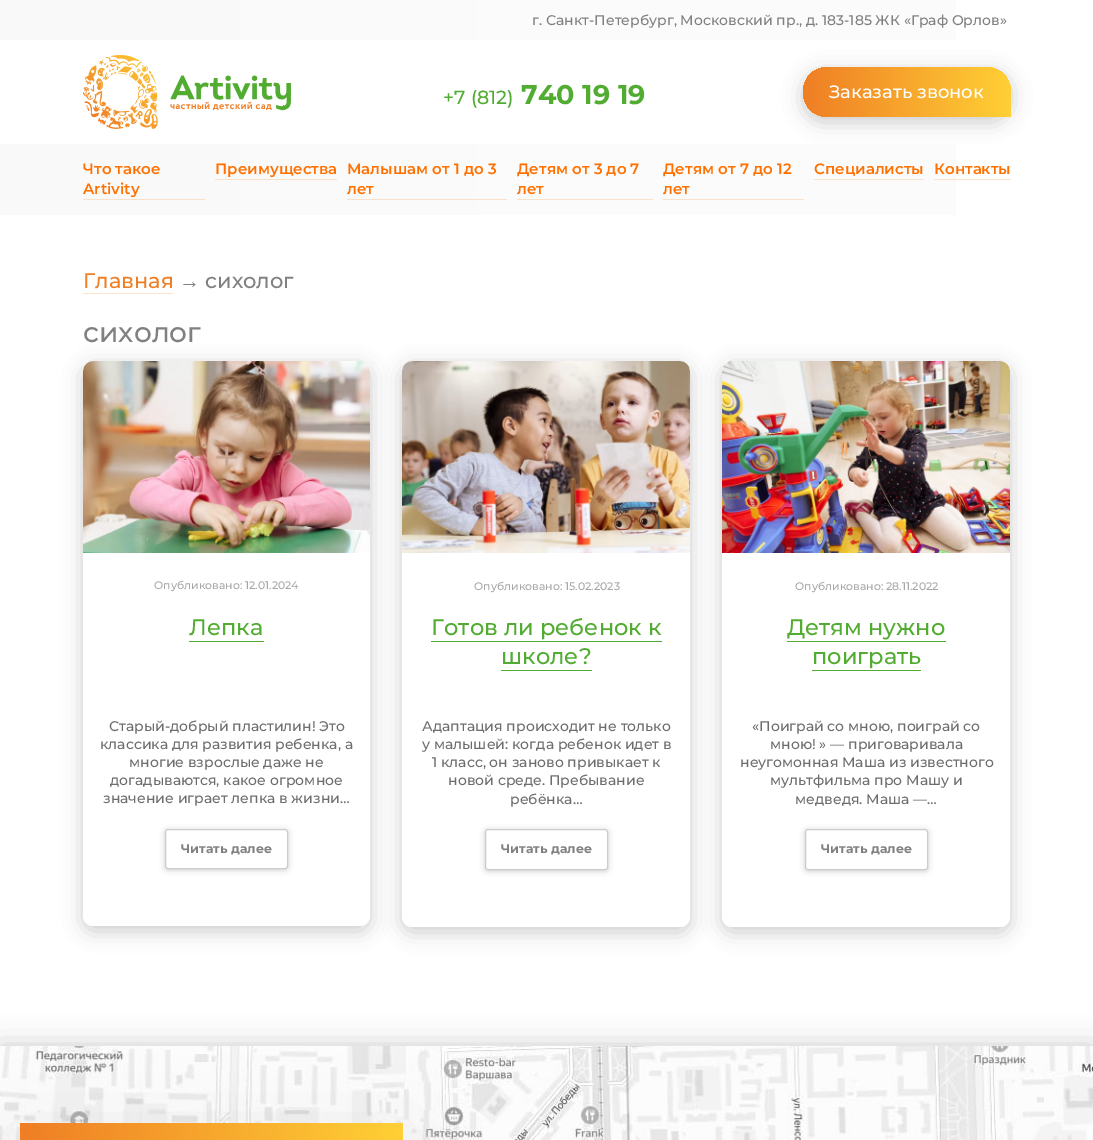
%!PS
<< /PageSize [1093 1140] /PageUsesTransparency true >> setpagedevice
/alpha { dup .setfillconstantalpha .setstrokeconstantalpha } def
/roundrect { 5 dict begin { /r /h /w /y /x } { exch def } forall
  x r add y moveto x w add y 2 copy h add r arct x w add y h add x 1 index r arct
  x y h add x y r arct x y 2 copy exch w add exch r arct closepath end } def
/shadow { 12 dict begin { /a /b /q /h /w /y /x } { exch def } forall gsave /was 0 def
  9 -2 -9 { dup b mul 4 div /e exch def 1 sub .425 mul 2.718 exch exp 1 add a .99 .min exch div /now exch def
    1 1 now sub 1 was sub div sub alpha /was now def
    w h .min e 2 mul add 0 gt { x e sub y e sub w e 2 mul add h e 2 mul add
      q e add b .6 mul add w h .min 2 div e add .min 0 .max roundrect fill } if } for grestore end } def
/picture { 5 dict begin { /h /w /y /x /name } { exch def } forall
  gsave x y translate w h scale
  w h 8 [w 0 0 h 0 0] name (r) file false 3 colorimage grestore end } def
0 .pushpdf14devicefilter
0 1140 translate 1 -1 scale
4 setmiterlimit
1 setgray
0 0 1093 1140 rectfill
gsave newpath 0 0 moveto 956 0 lineto 956 40 lineto 0 40 lineto closepath clip newpath
<< /ShadingType 2 /ColorSpace /DeviceRGB /Coords [0 20 1093 20] /Extend [true true] /Function << /FunctionType 2 /Domain [0 1] /C0 [0.976 0.976 0.976] /C1 [0.992 0.992 0.992] /N 1 >> >> shfill grestore
/Montserrat-Medium [14 0 0 -14 0 0] selectfont
0.502 setgray
532 25 moveto (г. Санкт-Петербург, Московский пр., д. 183-185 ЖК «Граф Орлов») show
(img1.rgb) 83 55 208 74 picture
/Montserrat-Medium [19 0 0 -19 0 0] selectfont
0.322 0.675 0.196 setrgbcolor
443 104 moveto (+7 \(812\)) show
/Montserrat-Bold [27 0 0 -27 0 0] selectfont
521 104 moveto (740 19 19) show
0 setgray
803 72 208 50 25 10 0.2 shadow
gsave newpath 828 67 moveto 986 67 lineto 1000 67 1011 78 1011 92 curveto 1011 117 lineto 828 117 lineto 814 117 803 106 803 92 curveto 803 78 814 67 828 67 curveto closepath clip newpath
<< /ShadingType 2 /ColorSpace /DeviceRGB /Coords [803 92 1011 92] /Extend [true true] /Function << /FunctionType 2 /Domain [0 1] /C0 [0.937 0.494 0.145] /C1 [1 0.816 0.208] /N 1 >> >> shfill grestore
/Montserrat-Medium [18 0 0 -18 0 0] selectfont
1 setgray
829 98 moveto (Заказать звонок) show
gsave newpath 0 144 moveto 956 144 lineto 956 215 lineto 0 215 lineto closepath clip newpath
<< /ShadingType 2 /ColorSpace /DeviceRGB /Coords [0 180 1093 179] /Extend [true true] /Function << /FunctionType 2 /Domain [0 1] /C0 [0.976 0.976 0.976] /C1 [0.992 0.992 0.992] /N 1 >> >> shfill grestore
0.973 0.878 0.788 setrgbcolor
83 199 122 1 rectfill
/Montserrat-SemiBold [15 0 0 -15 0 0] selectfont
1 0.439 0 setrgbcolor
83 174 moveto (Что такое) show
83 194 moveto (Artivity) show
0.973 0.878 0.788 setrgbcolor
215 179 122 1 rectfill
1 0.439 0 setrgbcolor
215 174 moveto (Преимущества) show
0.973 0.878 0.792 setrgbcolor
347 199 160 1 rectfill
1 0.439 0 setrgbcolor
347 174 moveto (Малышам от 1 до 3) show
347 194 moveto (лет) show
0.976 0.882 0.792 setrgbcolor
517 199 136 1 rectfill
1 0.439 0 setrgbcolor
517 174 moveto (Детям от 3 до 7) show
517 194 moveto (лет) show
0.976 0.882 0.796 setrgbcolor
663 199 141 1 rectfill
1 0.439 0 setrgbcolor
663 174 moveto (Детям от 7 до 12) show
663 194 moveto (лет) show
0.976 0.886 0.796 setrgbcolor
814 179 110 1 rectfill
1 0.439 0 setrgbcolor
814 174 moveto (Специалисты) show
0.98 0.886 0.8 setrgbcolor
934 179 77 1 rectfill
1 0.439 0 setrgbcolor
934 174 moveto (Контакты) show
/Montserrat-Medium [21 0 0 -21 0 0] selectfont
0.937 0.494 0.145 setrgbcolor
83 288 moveto (Главная) show
0.988 0.894 0.804 setrgbcolor
83 293 90 1 rectfill
/LiberationSans-Regular [21 0 0 -21 0 0] selectfont
0.502 setgray
179 288 moveto (→) show
/Montserrat-Medium [21 0 0 -21 0 0] selectfont
205 288 moveto (сихолог) show
/Montserrat-Medium [28 0 0 -28 0 0] selectfont
83 342 moveto (сихолог) show
0 setgray
83 366 287 565 10 10 0.2 shadow
1 setgray
83 361 287 565 10 roundrect fill
(img2.rgb) 83 361 287 192 picture
/Montserrat-Regular [48 0 0 -48 0 0] selectfont
0.78 0.647 0.573 setrgbcolor
213 474 moveto (+) show
/Montserrat-Medium [10.9 0 0 -10.9 0 0] selectfont
0.655 setgray
154 589 moveto (Опубликовано: 12.01.2024) show
/Montserrat-Medium [22.5 0 0 -22.5 0 0] selectfont
0.322 0.675 0.196 setrgbcolor
189 635 moveto (Лепка) show
189 641 75 1 rectfill
/Montserrat-Medium [14 0 0 -14 0 0] selectfont
0.427 setgray
109 731 moveto (Старый-добрый пластилин! Это) show
100 749 moveto (классика для развития ребенка, а) show
129 767 moveto (многие взрослые даже не) show
110 785 moveto (догадываются, какое огромное) show
103 803 moveto (значение играет лепка в жизни…) show
gsave
newpath 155 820 moveto 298 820 lineto 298 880 lineto 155 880 lineto closepath 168 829 moveto 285 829 lineto 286.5 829 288 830.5 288 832 curveto 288 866 lineto 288 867.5 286.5 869 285 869 curveto 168 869 lineto 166.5 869 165 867.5 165 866 curveto 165 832 lineto 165 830.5 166.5 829 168 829 curveto closepath eoclip newpath
0 setgray
165 830 123 40 3 3 0.2 shadow
grestore
0.8 setgray
165.5 829.5 122 39 2.5 roundrect stroke
/Montserrat-Bold [12.5 0 0 -12.5 0 0] selectfont
0.502 setgray
181 853 moveto (Читать далее) show
0 setgray
402 366 288 566 10 10 0.2 shadow
1 setgray
402 361 288 566 10 roundrect fill
(img3.rgb) 402 361 288 192 picture
/Montserrat-Medium [10.9 0 0 -10.9 0 0] selectfont
0.655 setgray
474 590 moveto (Опубликовано: 15.02.2023) show
/Montserrat-Medium [22.5 0 0 -22.5 0 0] selectfont
0.322 0.675 0.196 setrgbcolor
431 635 moveto (Готов ли ребенок к) show
431 641 231 1 rectfill
501 664 moveto (школе?) show
501 670 91 1 rectfill
/Montserrat-Medium [14 0 0 -14 0 0] selectfont
0.427 setgray
422 731 moveto (Адаптация происходит не только) show
422 749 moveto (у малышей: когда ребенок идет в) show
432 767 moveto (1 класс, он заново привыкает к) show
448 785 moveto (новой среде. Пребывание) show
510 804 moveto (ребёнка…) show
gsave
newpath 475 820 moveto 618 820 lineto 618 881 lineto 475 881 lineto closepath 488 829 moveto 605 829 lineto 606.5 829 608 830.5 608 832 curveto 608 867 lineto 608 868.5 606.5 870 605 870 curveto 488 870 lineto 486.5 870 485 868.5 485 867 curveto 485 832 lineto 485 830.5 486.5 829 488 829 curveto closepath eoclip newpath
0 setgray
485 830 123 41 3 3 0.2 shadow
grestore
0.8 setgray
485.5 829.5 122 40 2.5 roundrect stroke
/Montserrat-Bold [12.5 0 0 -12.5 0 0] selectfont
0.502 setgray
501 853 moveto (Читать далее) show
0 setgray
722 366 288 566 10 10 0.2 shadow
1 setgray
722 361 288 566 10 roundrect fill
(img4.rgb) 722 361 288 192 picture
/Montserrat-Regular [48 0 0 -48 0 0] selectfont
0.224 0.173 0.184 setrgbcolor
853 474 moveto (+) show
/Montserrat-Medium [10.9 0 0 -10.9 0 0] selectfont
0.655 setgray
795 590 moveto (Опубликовано: 28.11.2022) show
/Montserrat-Medium [22.5 0 0 -22.5 0 0] selectfont
0.322 0.675 0.196 setrgbcolor
787 635 moveto (Детям нужно) show
787 641 159 1 rectfill
812 664 moveto (поиграть) show
812 670 109 1 rectfill
/Montserrat-Medium [14 0 0 -14 0 0] selectfont
0.427 setgray
752 731 moveto («Поиграй со мною, поиграй со) show
770 749 moveto (мною! » — приговаривала) show
740 767 moveto (неугомонная Маша из известного) show
770 785 moveto (мультфильма про Машу и) show
795 804 moveto (медведя. Маша —…) show
gsave
newpath 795 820 moveto 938 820 lineto 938 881 lineto 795 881 lineto closepath 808 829 moveto 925 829 lineto 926.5 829 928 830.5 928 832 curveto 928 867 lineto 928 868.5 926.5 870 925 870 curveto 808 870 lineto 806.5 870 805 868.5 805 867 curveto 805 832 lineto 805 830.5 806.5 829 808 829 curveto closepath eoclip newpath
0 setgray
805 830 123 41 3 3 0.2 shadow
grestore
0.8 setgray
805.5 829.5 122 40 2.5 roundrect stroke
/Montserrat-Bold [12.5 0 0 -12.5 0 0] selectfont
0.502 setgray
821 853 moveto (Читать далее) show
0 setgray
0 1046 1093 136 0 14 0.2 shadow
(img5.rgb) 0 1046 1093 94 picture
0.071 0.075 0.082 setrgbcolor
20 1140 383 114 0 38 0.11 shadow
gsave newpath 20 1123 moveto 403 1123 lineto 403 1140 lineto 20 1140 lineto closepath clip newpath
<< /ShadingType 2 /ColorSpace /DeviceRGB /Coords [20 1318 403 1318] /Extend [true true] /Function << /FunctionType 2 /Domain [0 1] /C0 [0.937 0.494 0.145] /C1 [1 0.816 0.208] /N 1 >> >> shfill grestore
.poppdf14devicefilter showpage
